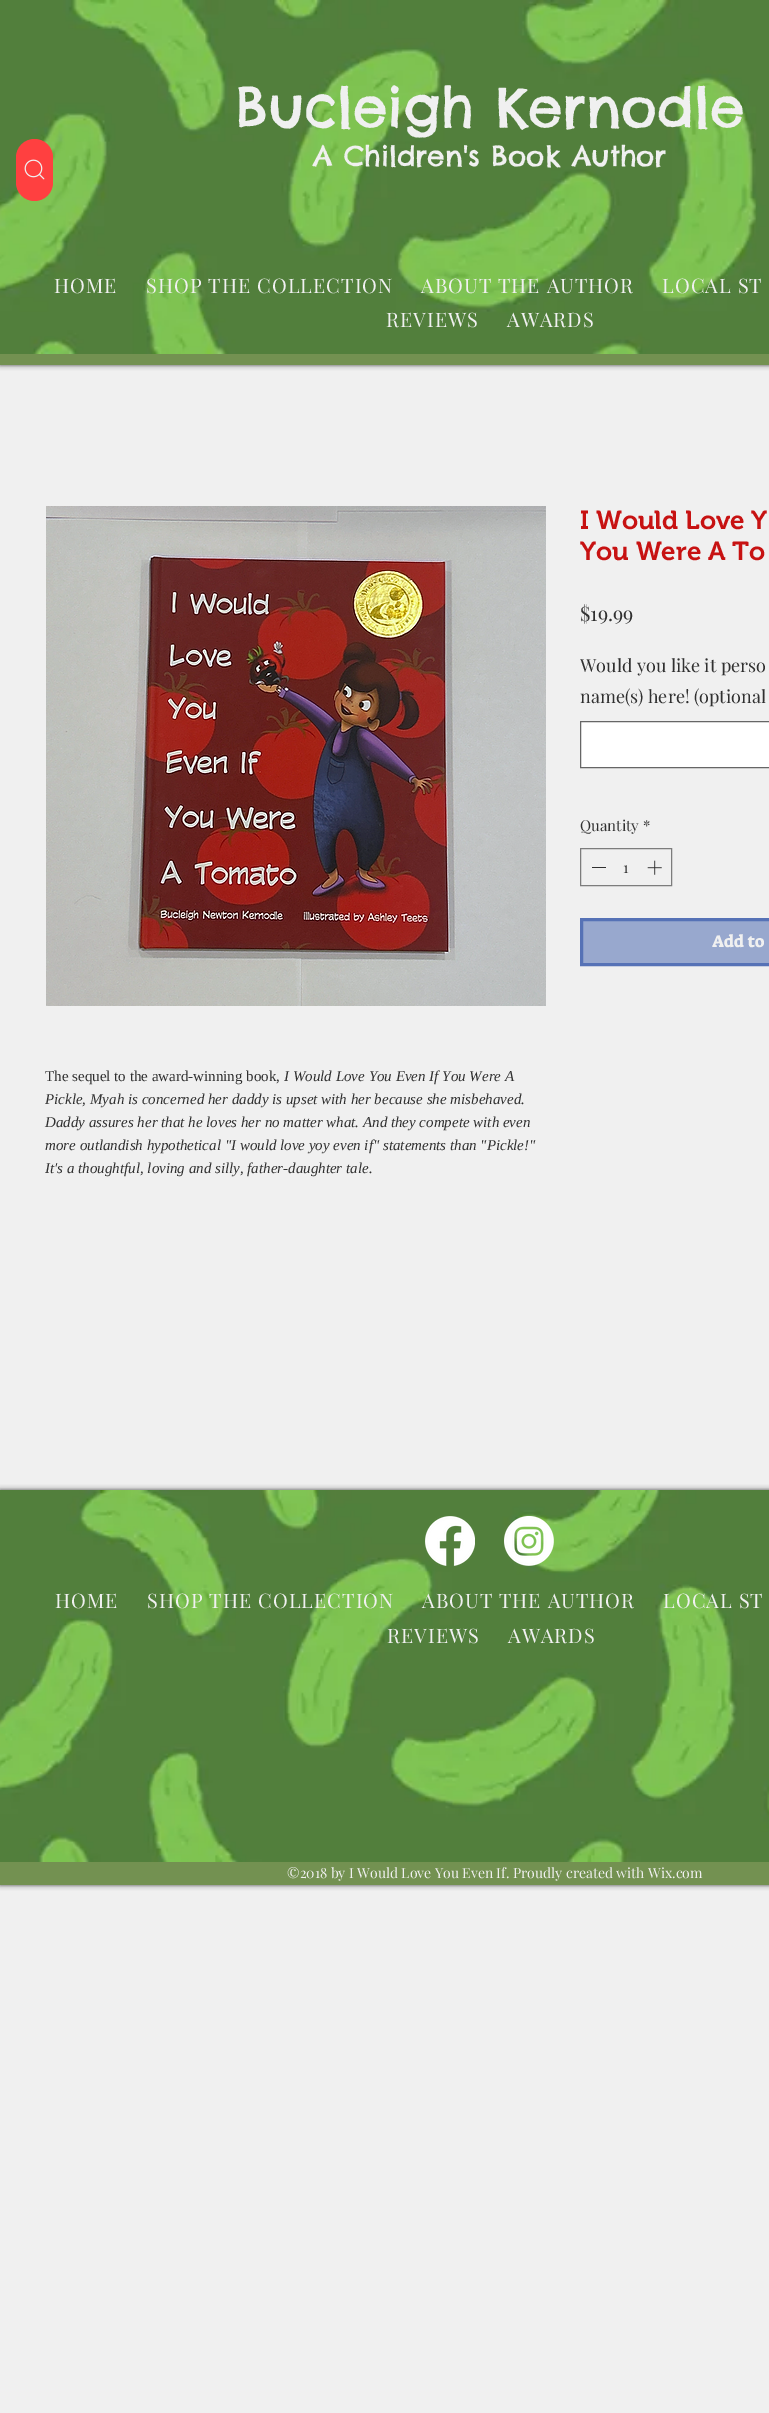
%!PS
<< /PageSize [769 2413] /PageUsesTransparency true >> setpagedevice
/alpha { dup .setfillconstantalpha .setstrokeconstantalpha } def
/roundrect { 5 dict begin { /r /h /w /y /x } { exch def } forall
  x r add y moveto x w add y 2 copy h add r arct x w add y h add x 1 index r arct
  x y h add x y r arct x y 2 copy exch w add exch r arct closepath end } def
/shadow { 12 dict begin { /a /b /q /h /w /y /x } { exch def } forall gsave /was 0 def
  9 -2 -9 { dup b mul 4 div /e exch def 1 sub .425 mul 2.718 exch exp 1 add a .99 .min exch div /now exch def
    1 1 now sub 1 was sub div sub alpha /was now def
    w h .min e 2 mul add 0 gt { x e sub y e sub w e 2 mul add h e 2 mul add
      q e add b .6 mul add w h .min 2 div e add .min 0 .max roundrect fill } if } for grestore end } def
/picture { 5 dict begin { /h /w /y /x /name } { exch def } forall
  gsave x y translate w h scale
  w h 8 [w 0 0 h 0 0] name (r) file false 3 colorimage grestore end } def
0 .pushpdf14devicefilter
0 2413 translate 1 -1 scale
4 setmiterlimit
0.941 setgray
0 0 769 2413 rectfill
0 setgray
0 0 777 365 0 2.5 0.7 shadow
0.451 0.569 0.318 setrgbcolor
0 354 769 11 rectfill
(img1.rgb) 0 0 769 354 picture
/ChelseaMarket-Regular [55 0 0 -55 0 0] selectfont
0.941 setgray
235 127 moveto (Bucleigh Kernodle) show
1 0.251 0.251 setrgbcolor
16 139 37 62 18.5 roundrect fill
(img2.rgb) 24 159 21 21 picture
/ChelseaMarket-Regular [28 0 0 -28 0 0] selectfont
0.941 setgray
313 166 moveto (A Children's Book Author) show
/PlayfairDisplay-Regular [20 0 0 -20 0 0] selectfont
54 293 moveto 1 0 (HOME) ashow
146 293 moveto 1 0 (SHOP THE COLLECTION) ashow
421 293 moveto 1 0 (ABOUT THE AUTHOR) ashow
662 293 moveto 1 0 (LOCAL ST) ashow
386 327 moveto 1 0 (REVIEWS) ashow
507 327 moveto 1 0 (AWARDS) ashow
/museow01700-SemiBold [26 0 0 -26 0 0] selectfont
0.78 0.071 0.071 setrgbcolor
580 529 moveto (I Would Love Y) show
580 560 moveto (You Were A To) show
/PlayfairDisplay-Regular [20 0 0 -20 0 0] selectfont
0.188 setgray
580 621 moveto ($19.99) show
/PlayfairDisplay-Regular [18 0 0 -18 0 0] selectfont
580 672 moveto (Would you like it perso) show
580 703 moveto (name\(s\) here! \(optional) show
1 setgray
newpath 580.5 721.5 moveto 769.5 721.5 lineto 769.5 767.5 lineto 580.5 767.5 lineto closepath gsave fill grestore
0.4 setgray
stroke
/PlayfairDisplay-Regular [15 0 0 -15 0 0] selectfont
0.188 setgray
580 831 moveto (Quantity *) show
0.49 setgray
580.5 848.5 91 37 rectstroke
0.188 setgray
592 867 14 1 rectfill
623 873 moveto (1) show
(img3.rgb) 647 860 15 15 picture
0.596 0.659 0.808 setrgbcolor
newpath 581.5 919.5 moveto 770.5 919.5 lineto 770.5 964.5 lineto 581.5 964.5 lineto closepath gsave fill grestore
0.337 0.447 0.714 setrgbcolor
3 setlinewidth
stroke
/SuezOne-Regular [17 0 0 -17 0 0] selectfont
0.941 setgray
712 947 moveto (Add to) show
(img4.rgb) 46 506 500 500 picture
/LiberationSerif-Regular [15 0 0 -15 0 0] selectfont
0.188 setgray
45 1081 moveto (The sequel to the award-winning book,) show
/LiberationSerif-Italic [15 0 0 -15 0 0] selectfont
284 1081 moveto (I Would Love You Even If You Were A) show
45 1104 moveto (Pickle, Myah is concerned her daddy is upset with her because she misbehaved.) show
45 1127 moveto (Daddy assures her that he loves her no matter what. And they compete with even) show
45 1150 moveto (more outlandish hypothetical "I would love yoy even if" statements than "Pickle!") show
45 1173 moveto (It's a thoughtful, loving and silly, father-daughter tale.) show
0 setgray
0 1490 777 395 0 2.5 0.7 shadow
0.451 0.569 0.318 setrgbcolor
0 1862 769 23 rectfill
(img5.rgb) 0 1490 769 372 picture
(img6.rgb) 425 1516 50 50 picture
(img7.rgb) 504 1516 50 50 picture
/PlayfairDisplay-Regular [20 0 0 -20 0 0] selectfont
0.941 setgray
55 1608 moveto 1 0 (HOME) ashow
147 1608 moveto 1 0 (SHOP THE COLLECTION) ashow
422 1608 moveto 1 0 (ABOUT THE AUTHOR) ashow
663 1608 moveto 1 0 (LOCAL ST) ashow
387 1643 moveto 1 0 (REVIEWS) ashow
508 1643 moveto 1 0 (AWARDS) ashow
/PlayfairDisplay-Regular [14 0 0 -14 0 0] selectfont
287 1878 moveto (©2018 by I Would Love You Even If. Proudly created with Wix.com) show
.poppdf14devicefilter showpage
